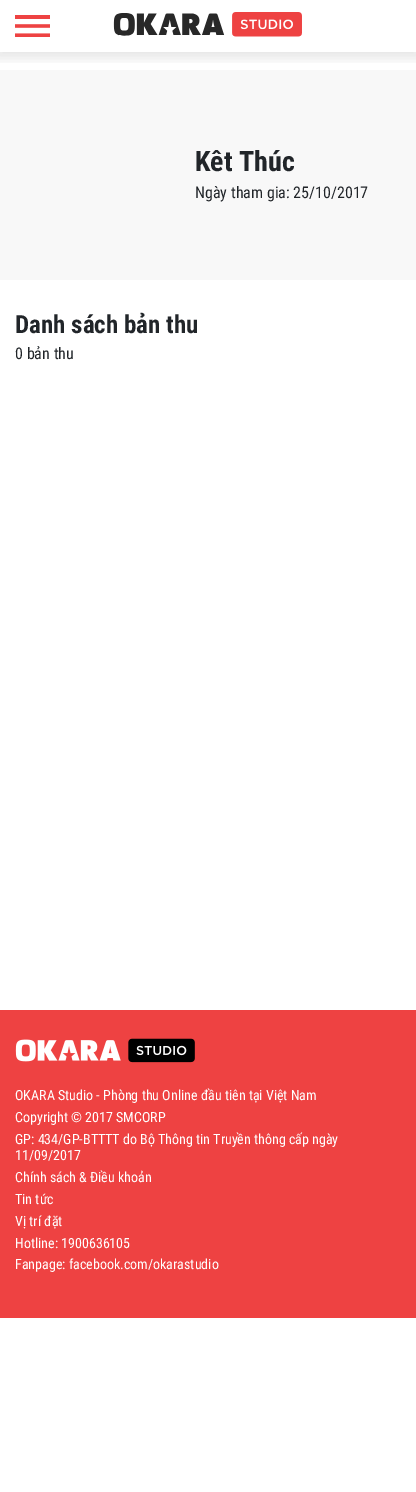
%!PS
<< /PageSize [416 1492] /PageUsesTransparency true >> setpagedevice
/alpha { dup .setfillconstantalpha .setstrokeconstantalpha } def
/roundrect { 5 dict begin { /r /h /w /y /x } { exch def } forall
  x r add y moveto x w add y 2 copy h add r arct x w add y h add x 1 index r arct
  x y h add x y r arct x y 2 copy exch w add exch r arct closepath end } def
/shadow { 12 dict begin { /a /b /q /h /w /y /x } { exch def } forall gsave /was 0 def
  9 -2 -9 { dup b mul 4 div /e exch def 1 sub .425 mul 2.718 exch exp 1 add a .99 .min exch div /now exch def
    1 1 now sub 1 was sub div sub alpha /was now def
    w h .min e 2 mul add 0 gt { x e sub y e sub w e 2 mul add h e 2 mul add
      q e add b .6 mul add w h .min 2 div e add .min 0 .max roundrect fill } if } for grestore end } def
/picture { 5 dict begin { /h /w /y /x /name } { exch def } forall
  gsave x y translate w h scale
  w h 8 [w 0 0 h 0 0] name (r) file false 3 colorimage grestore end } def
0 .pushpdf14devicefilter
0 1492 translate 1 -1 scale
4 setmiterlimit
1 setgray
0 0 416 1492 rectfill
0.973 setgray
0 70 416 210 rectfill
gsave
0 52 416 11 rectclip
0 setgray
-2 2 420 56 0 6 0.1 shadow
grestore
(img1.rgb) 15 15 35 22 picture
(img2.rgb) 113 12 189 25 picture
/RobotoCondensed-Bold [28 0 0 -28 0 0] selectfont
0.129 0.145 0.161 setrgbcolor
195 171 moveto (Kêt Thúc) show
/RobotoCondensed-Regular [16 0 0 -16 0 0] selectfont
195 198 moveto (Ngày tham gia: 25/10/2017) show
/RobotoCondensed-Bold [25 0 0 -25 0 0] selectfont
15 333 moveto (Danh sách bản thu) show
/RobotoCondensed-Regular [16 0 0 -16 0 0] selectfont
15 359 moveto (0 bản thu) show
0.933 0.259 0.259 setrgbcolor
0 1010 416 308 rectfill
(img3.rgb) 15 1038 180 25 picture
/RobotoCondensed-Regular [14 0 0 -14 0 0] selectfont
1 setgray
15 1100 moveto (OKARA Studio - Phòng thu Online đầu tiên tại Việt Nam) show
15 1122 moveto (Copyright © 2017 SMCORP) show
15 1144 moveto (GP: 434/GP-BTTTT do Bộ Thông tin Truyền thông cấp ngày) show
15 1160 moveto (11/09/2017) show
15 1182 moveto (Chính sách & Điều khoản) show
15 1204 moveto (Tin tức) show
15 1226 moveto (Vị trí đặt) show
15 1248 moveto (Hotline: 1900636105) show
15 1269 moveto (Fanpage: facebook.com/okarastudio) show
.poppdf14devicefilter showpage
